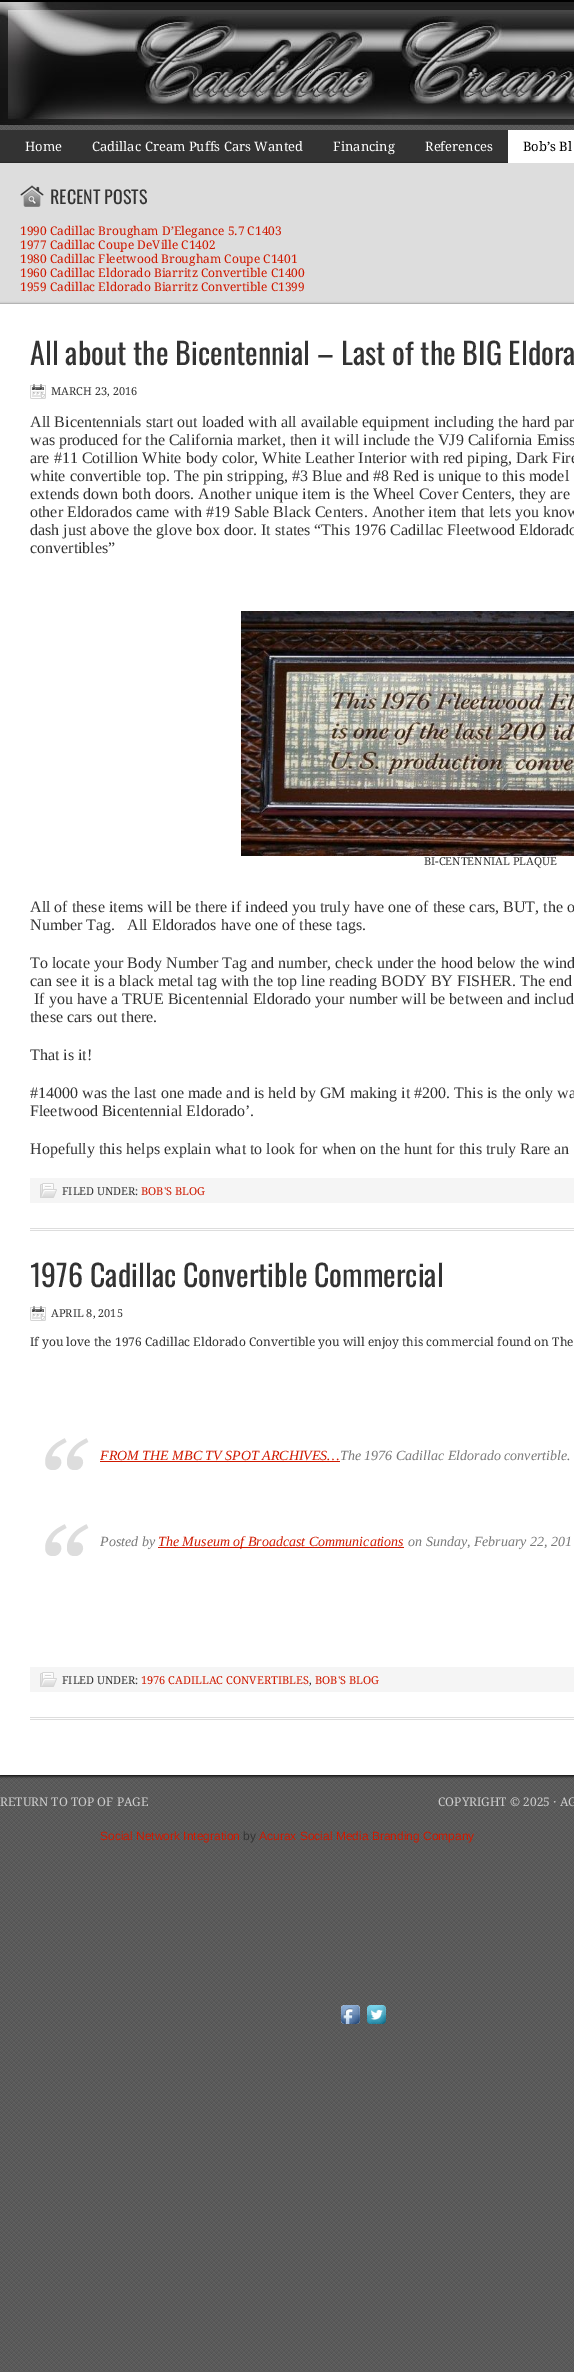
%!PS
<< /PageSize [574 2372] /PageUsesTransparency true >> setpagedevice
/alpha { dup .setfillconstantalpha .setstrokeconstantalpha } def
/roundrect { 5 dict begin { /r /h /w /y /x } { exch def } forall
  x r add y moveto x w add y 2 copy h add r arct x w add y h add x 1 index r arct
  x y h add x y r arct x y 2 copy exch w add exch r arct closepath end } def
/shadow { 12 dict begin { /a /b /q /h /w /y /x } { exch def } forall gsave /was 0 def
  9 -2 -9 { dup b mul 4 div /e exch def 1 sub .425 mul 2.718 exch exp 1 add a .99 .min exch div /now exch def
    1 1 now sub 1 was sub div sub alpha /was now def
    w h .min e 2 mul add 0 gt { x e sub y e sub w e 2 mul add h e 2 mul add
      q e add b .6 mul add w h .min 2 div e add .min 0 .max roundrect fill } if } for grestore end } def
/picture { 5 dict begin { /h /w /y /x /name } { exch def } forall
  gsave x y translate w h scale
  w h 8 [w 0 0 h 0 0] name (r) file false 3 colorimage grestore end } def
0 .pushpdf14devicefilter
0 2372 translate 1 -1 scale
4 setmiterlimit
1 setgray
0 0 574 2372 rectfill
(img1.rgb) 0 125 574 2247 picture
(img2.rgb) 0 0 574 125 picture
0.2 setgray
0 130 508 33 rectfill
/DroidSerif-Regular [13 0 0 -13 0 0] selectfont
1 setgray
25 151 moveto (Home) show
92 151 moveto (Cadillac Cream Puffs Cars Wanted) show
333 151 moveto (Financing) show
425 151 moveto (References) show
0 setgray
0 164 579 141 0 1.5 1 shadow
1 setgray
508 130 66 33 rectfill
0 setgray
523 151 moveto (Bob’s Bl) show
0.867 setgray
0 163 574 141 rectfill
(img3.rgb) 20 185 24 22 picture
/Oswald-Regular [18 0 0 -18 0 0] selectfont
0.2 setgray
50 204 moveto (RECENT POSTS) show
/DroidSerif-Regular [12 0 0 -12 0 0] selectfont
0.812 0.098 0 setrgbcolor
20 235 moveto (1990 Cadillac Brougham D’Elegance 5.7 C1403) show
20 249 moveto (1977 Cadillac Coupe DeVille C1402) show
20 263 moveto (1980 Cadillac Fleetwood Brougham Coupe C1401) show
20 277 moveto (1960 Cadillac Eldorado Biarritz Convertible C1400) show
20 291 moveto (1959 Cadillac Eldorado Biarritz Convertible C1399) show
0 setgray
0 305 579 1471 0 1.5 1 shadow
1 setgray
0 304 574 1471 rectfill
0.867 setgray
30 1228 544 1 rectfill
30 1230 544 1 rectfill
/Oswald-Regular [30 0 0 -30 0 0] selectfont
0.2 setgray
30 365 moveto (All about the Bicentennial – Last of the BIG Eldora) show
(img4.rgb) 30 384 16 15 picture
/DroidSerif-Regular [11 0 0 -11 0 0] selectfont
51 395 moveto (MARCH 23, 2016) show
/LiberationSerif-Regular [16 0 0 -16 0 0] selectfont
30 427 moveto (All Bicentennials start out loaded with all available equipment including the hard par) show
30 445 moveto (was produced for the California market, then it will include the VJ9 California Emiss) show
30 463 moveto (are #11 Cotillion White body color, White Leather Interior with red piping, Dark Fire) show
30 481 moveto (white convertible top. The pin stripping, #3 Blue and #8 Red is unique to this model) show
30 499 moveto (extends down both doors. Another unique item is the Wheel Cover Centers, they are) show
30 517 moveto (other Eldorados came with #19 Sable Black Centers. Another item that lets you know) show
30 535 moveto (dash just above the glove box door. It states “This 1976 Cadillac Fleetwood Eldorado) show
30 553 moveto (convertibles”) show
(img5.rgb) 241 611 333 245 picture
/DroidSerif-Regular [11 0 0 -11 0 0] selectfont
424 865 moveto (BI-CENTENNIAL PLAQUE) show
/LiberationSerif-Regular [16 0 0 -16 0 0] selectfont
30 912 moveto (All of these items will be there if indeed you truly have one of these cars, BUT, the o) show
30 930 moveto (Number Tag.   All Eldorados have one of these tags.) show
30 968 moveto (To locate your Body Number Tag and number, check under the hood below the wind) show
30 986 moveto (can see it is a black metal tag with the top line reading BODY BY FISHER. The end) show
34 1004 moveto (If you have a TRUE Bicentennial Eldorado your number will be between and includ) show
30 1022 moveto (these cars out there.) show
30 1060 moveto (That is it!) show
30 1098 moveto (#14000 was the last one made and is held by GM making it #200. This is the only wa) show
30 1116 moveto (Fleetwood Bicentennial Eldorado’.) show
30 1154 moveto (Hopefully this helps explain what to look for when on the hunt for this truly Rare an) show
0.961 setgray
30 1178 544 25 rectfill
(img6.rgb) 40 1183 17 15 picture
/DroidSerif-Regular [11 0 0 -11 0 0] selectfont
0.2 setgray
62 1195 moveto (FILED UNDER:) show
0.812 0.098 0 setrgbcolor
141 1195 moveto (BOB'S BLOG) show
0.867 setgray
30 1717 544 1 rectfill
30 1719 544 1 rectfill
/Oswald-Regular [30 0 0 -30 0 0] selectfont
0.2 setgray
30 1287 moveto (1976 Cadillac Convertible Commercial) show
(img4.rgb) 30 1306 16 15 picture
/DroidSerif-Regular [11 0 0 -11 0 0] selectfont
51 1317 moveto (APRIL 8, 2015) show
/DroidSerif-Regular [12 0 0 -12 0 0] selectfont
30 1346 moveto (If you love the 1976 Cadillac Eldorado Convertible you will enjoy this commercial found on The) show
(img7.rgb) 45 1438 44 32 picture
/LiberationSerif-Italic [14 0 0 -14 0 0] selectfont
0.812 0.098 0 setrgbcolor
100 1460 moveto (FROM THE MBC TV SPOT ARCHIVES…) show
100 1461 240 1 rectfill
0.467 setgray
340 1460 moveto (The 1976 Cadillac Eldorado convertible.) show
(img7.rgb) 45 1524 44 32 picture
100 1546 moveto (Posted by) show
0.812 0.098 0 setrgbcolor
158 1547 246 1 rectfill
158 1546 moveto (The Museum of Broadcast Communications) show
0.467 setgray
408 1546 moveto (on Sunday, February 22, 201) show
0.961 setgray
30 1667 544 25 rectfill
(img6.rgb) 40 1672 17 15 picture
/DroidSerif-Regular [11 0 0 -11 0 0] selectfont
0.2 setgray
62 1684 moveto (FILED UNDER:) show
0.812 0.098 0 setrgbcolor
141 1684 moveto (1976 CADILLAC CONVERTIBLES) show
0.2 setgray
309 1684 moveto (,) show
0.812 0.098 0 setrgbcolor
315 1684 moveto (BOB'S BLOG) show
/DroidSerif-Regular [12 0 0 -12 0 0] selectfont
0.8 setgray
0 1806 moveto (RETURN TO TOP OF PAGE) show
438 1806 moveto (COPYRIGHT © 2025 · AG) show
/LiberationSans-Regular [12 0 0 -12 0 0] selectfont
0.812 0.098 0 setrgbcolor
100 1840 moveto (Social Network Integration) show
0.2 setgray
243 1840 moveto (by) show
0.812 0.098 0 setrgbcolor
259 1840 moveto (Acurax Social Media Branding Company) show
(img8.rgb) 341 2005 19 19 picture
(img9.rgb) 367 2005 19 19 picture
.poppdf14devicefilter showpage
